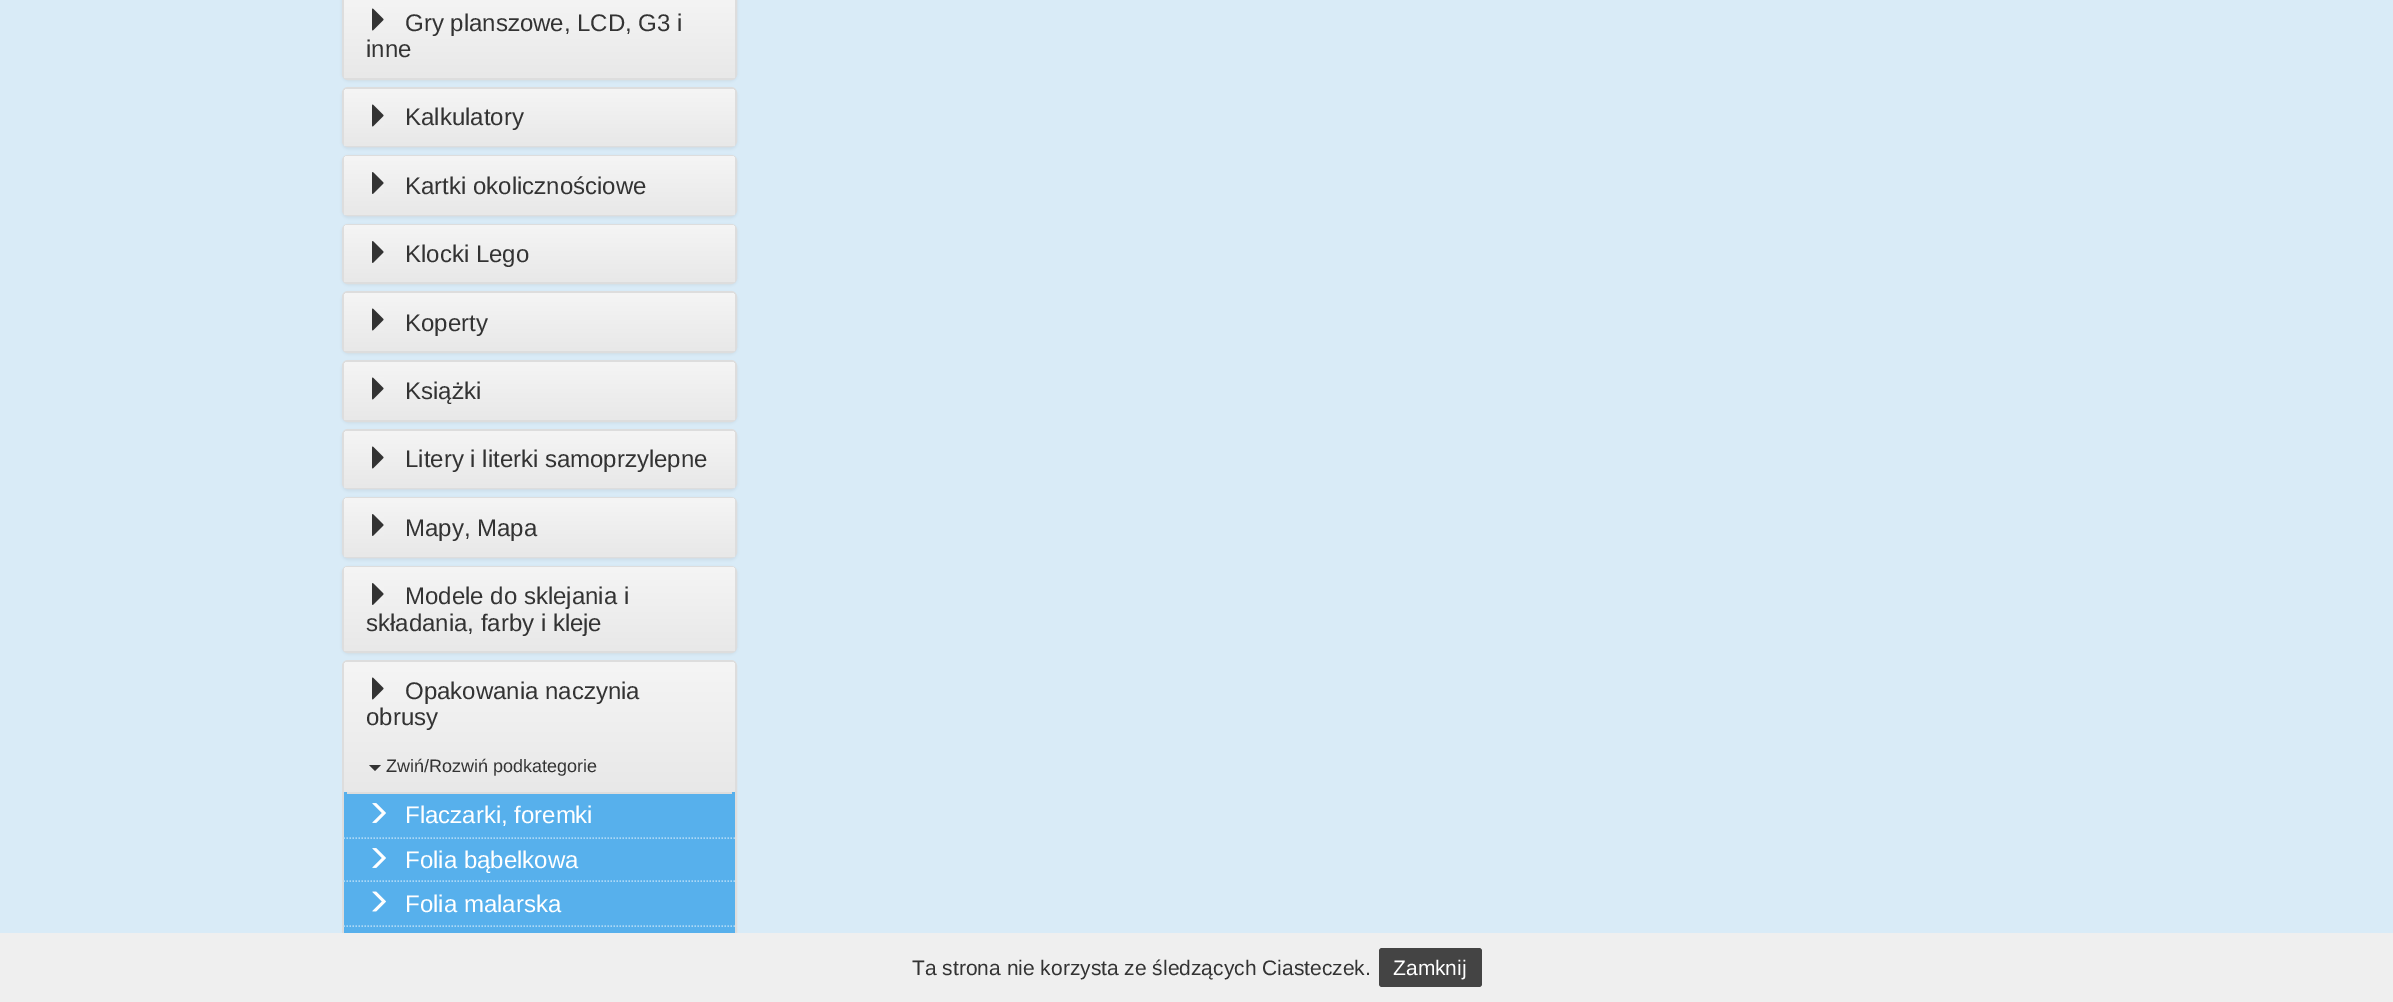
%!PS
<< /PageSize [2393 1002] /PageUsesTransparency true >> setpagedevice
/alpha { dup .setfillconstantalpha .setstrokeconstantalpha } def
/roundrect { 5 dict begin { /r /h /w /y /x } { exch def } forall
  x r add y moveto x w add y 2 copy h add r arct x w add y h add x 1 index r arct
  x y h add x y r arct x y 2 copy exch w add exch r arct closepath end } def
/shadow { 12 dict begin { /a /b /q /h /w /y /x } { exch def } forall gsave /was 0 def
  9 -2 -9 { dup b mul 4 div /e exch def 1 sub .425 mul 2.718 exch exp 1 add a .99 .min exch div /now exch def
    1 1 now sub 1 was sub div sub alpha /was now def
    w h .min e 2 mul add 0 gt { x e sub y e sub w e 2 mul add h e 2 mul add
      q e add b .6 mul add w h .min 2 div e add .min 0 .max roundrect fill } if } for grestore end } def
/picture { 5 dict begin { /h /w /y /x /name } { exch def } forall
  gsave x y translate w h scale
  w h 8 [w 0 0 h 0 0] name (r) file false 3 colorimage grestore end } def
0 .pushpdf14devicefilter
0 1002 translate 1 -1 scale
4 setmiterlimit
0.851 0.922 0.969 setrgbcolor
0 0 2393 1002 rectfill
0 setgray
342 -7 395 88 6 1.5 0.05 shadow
0.867 setgray
2 setlinewidth
343 -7 393 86 5 roundrect stroke
gsave newpath 344 0 moveto 735 0 lineto 735 78 lineto 344 78 lineto closepath clip newpath
<< /ShadingType 2 /ColorSpace /DeviceRGB /Coords [539 -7.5 539 78] /Extend [true true] /Function << /FunctionType 2 /Domain [0 1] /C0 [0.961 0.961 0.961] /C1 [0.91 0.91 0.91] /N 1 >> >> shfill grestore
(img1.rgb) 372 8 12 23 picture
/LiberationSans-Regular [24 0 0 -24 0 0] selectfont
0.2 setgray
405 31 moveto (Gry planszowe, LCD, G3 i) show
366 57 moveto (inne) show
0 setgray
342 89 395 60 6 1.5 0.05 shadow
1 setgray
343 88 393 58 5 roundrect gsave fill grestore
0.867 setgray
stroke
gsave newpath 349 89 moveto 730 89 lineto 733 89 735 91 735 94 curveto 735 146 lineto 344 146 lineto 344 94 lineto 344 91 346 89 349 89 curveto closepath clip newpath
<< /ShadingType 2 /ColorSpace /DeviceRGB /Coords [539 88 539 146] /Extend [true true] /Function << /FunctionType 2 /Domain [0 1] /C0 [0.961 0.961 0.961] /C1 [0.91 0.91 0.91] /N 1 >> >> shfill grestore
(img2.rgb) 372 104 12 23 picture
0.2 setgray
405 125 moveto (Kalkulatory) show
0 setgray
342 156 395 62 6 1.5 0.05 shadow
0.867 setgray
343 156 393 59 5 roundrect stroke
gsave newpath 349 156 moveto 730 156 lineto 733 156 735 158 735 161 curveto 735 215 lineto 344 215 lineto 344 161 lineto 344 158 346 156 349 156 curveto closepath clip newpath
<< /ShadingType 2 /ColorSpace /DeviceRGB /Coords [539 156 539 215] /Extend [true true] /Function << /FunctionType 2 /Domain [0 1] /C0 [0.961 0.961 0.961] /C1 [0.91 0.91 0.91] /N 1 >> >> shfill grestore
(img3.rgb) 372 172 12 22 picture
0.2 setgray
405 194 moveto (Kartki okolicznościowe) show
0 setgray
342 225 395 60 6 1.5 0.05 shadow
0.867 setgray
343 225 393 58 5 roundrect stroke
gsave newpath 349 225 moveto 730 225 lineto 733 225 735 227 735 230 curveto 735 282 lineto 344 282 lineto 344 230 lineto 344 227 346 225 349 225 curveto closepath clip newpath
<< /ShadingType 2 /ColorSpace /DeviceRGB /Coords [539 225 539 282] /Extend [true true] /Function << /FunctionType 2 /Domain [0 1] /C0 [0.961 0.961 0.961] /C1 [0.91 0.91 0.91] /N 1 >> >> shfill grestore
(img4.rgb) 372 241 12 22 picture
0.2 setgray
405 262 moveto (Klocki Lego) show
0 setgray
342 293 395 61 6 1.5 0.05 shadow
1 setgray
343 292 393 60 5 roundrect gsave fill grestore
0.867 setgray
stroke
gsave newpath 349 293 moveto 730 293 lineto 733 293 735 295 735 298 curveto 735 351 lineto 344 351 lineto 344 298 lineto 344 295 346 293 349 293 curveto closepath clip newpath
<< /ShadingType 2 /ColorSpace /DeviceRGB /Coords [539 293 539 351] /Extend [true true] /Function << /FunctionType 2 /Domain [0 1] /C0 [0.961 0.961 0.961] /C1 [0.91 0.91 0.91] /N 1 >> >> shfill grestore
(img5.rgb) 372 308 12 23 picture
0.2 setgray
405 331 moveto (Koperty) show
0 setgray
342 362 395 61 6 1.5 0.05 shadow
1 setgray
343 361 393 60 5 roundrect gsave fill grestore
0.867 setgray
stroke
gsave newpath 349 362 moveto 730 362 lineto 733 362 735 364 735 367 curveto 735 420 lineto 344 420 lineto 344 367 lineto 344 364 346 362 349 362 curveto closepath clip newpath
<< /ShadingType 2 /ColorSpace /DeviceRGB /Coords [539 362 539 420] /Extend [true true] /Function << /FunctionType 2 /Domain [0 1] /C0 [0.961 0.961 0.961] /C1 [0.91 0.91 0.91] /N 1 >> >> shfill grestore
(img5.rgb) 372 377 12 23 picture
0.2 setgray
405 399 moveto (Książki) show
0 setgray
342 431 395 60 6 1.5 0.05 shadow
1 setgray
343 430 393 58 5 roundrect gsave fill grestore
0.867 setgray
stroke
gsave newpath 349 431 moveto 730 431 lineto 733 431 735 433 735 436 curveto 735 488 lineto 344 488 lineto 344 436 lineto 344 433 346 431 349 431 curveto closepath clip newpath
<< /ShadingType 2 /ColorSpace /DeviceRGB /Coords [539 431 539 488] /Extend [true true] /Function << /FunctionType 2 /Domain [0 1] /C0 [0.961 0.961 0.961] /C1 [0.91 0.91 0.91] /N 1 >> >> shfill grestore
(img6.rgb) 372 446 12 23 picture
0.2 setgray
405 467 moveto (Litery i literki samoprzylepne) show
0 setgray
342 498 395 62 6 1.5 0.05 shadow
0.867 setgray
343 498 393 59 5 roundrect stroke
gsave newpath 349 498 moveto 730 498 lineto 733 498 735 500 735 503 curveto 735 557 lineto 344 557 lineto 344 503 lineto 344 500 346 498 349 498 curveto closepath clip newpath
<< /ShadingType 2 /ColorSpace /DeviceRGB /Coords [539 498 539 557] /Extend [true true] /Function << /FunctionType 2 /Domain [0 1] /C0 [0.961 0.961 0.961] /C1 [0.91 0.91 0.91] /N 1 >> >> shfill grestore
(img3.rgb) 372 514 12 22 picture
0.2 setgray
405 536 moveto (Mapy, Mapa) show
0 setgray
342 567 395 87 6 1.5 0.05 shadow
0.867 setgray
343 567 393 85 5 roundrect stroke
gsave newpath 349 567 moveto 730 567 lineto 733 567 735 569 735 572 curveto 735 651 lineto 344 651 lineto 344 572 lineto 344 569 346 567 349 567 curveto closepath clip newpath
<< /ShadingType 2 /ColorSpace /DeviceRGB /Coords [539 567 539 651] /Extend [true true] /Function << /FunctionType 2 /Domain [0 1] /C0 [0.961 0.961 0.961] /C1 [0.91 0.91 0.91] /N 1 >> >> shfill grestore
(img7.rgb) 372 583 12 22 picture
0.2 setgray
405 604 moveto (Modele do sklejania i) show
366 631 moveto (składania, farby i kleje) show
1 setgray
343 661 393 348 5 roundrect gsave fill grestore
0.867 setgray
stroke
gsave newpath 349 662 moveto 730 662 lineto 733 662 735 664 735 667 curveto 735 792 lineto 344 792 lineto 344 667 lineto 344 664 346 662 349 662 curveto closepath clip newpath
<< /ShadingType 2 /ColorSpace /DeviceRGB /Coords [539 662 539 792] /Extend [true true] /Function << /FunctionType 2 /Domain [0 1] /C0 [0.961 0.961 0.961] /C1 [0.91 0.91 0.91] /N 1 >> >> shfill grestore
(img8.rgb) 372 677 12 23 picture
0.2 setgray
405 699 moveto (Opakowania naczynia) show
366 725 moveto (obrusy) show
newpath 369 765 moveto 381 765 lineto 375 771 lineto closepath fill
/LiberationSans-Regular [18 0 0 -18 0 0] selectfont
386 772 moveto (Zwiń/Rozwiń podkategorie) show
0.341 0.69 0.925 setrgbcolor
344 792 391 141 rectfill
0.867 setgray
347 792 385 2 rectfill
0.671 0.847 0.965 setrgbcolor
1.5 setlinewidth
[1.5 1.5] 0 setdash
newpath 343.5 838 moveto 735 838 lineto stroke
(img9.rgb) 372 803 14 20 picture
/LiberationSans-Regular [24 0 0 -24 0 0] selectfont
1 setgray
405 823 moveto (Flaczarki, foremki) show
0.671 0.847 0.965 setrgbcolor
newpath 343.5 881 moveto 735 881 lineto stroke
(img9.rgb) 372 848 14 20 picture
1 setgray
405 868 moveto (Folia bąbelkowa) show
0.671 0.847 0.965 setrgbcolor
newpath 343.5 926 moveto 735 926 lineto stroke
(img10.rgb) 372 891 14 21 picture
1 setgray
405 912 moveto (Folia malarska) show
0.937 setgray
0 933 2393 69 rectfill
/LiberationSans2-Regular [21 0 0 -21 0 0] selectfont
0.2 setgray
912 975 moveto (Ta strona nie korzysta ze śledzących Ciasteczek.) show
0.267 setgray
1379 948 103 39 3 roundrect fill
1 setgray
1393 975 moveto (Zamknij) show
.poppdf14devicefilter showpage
